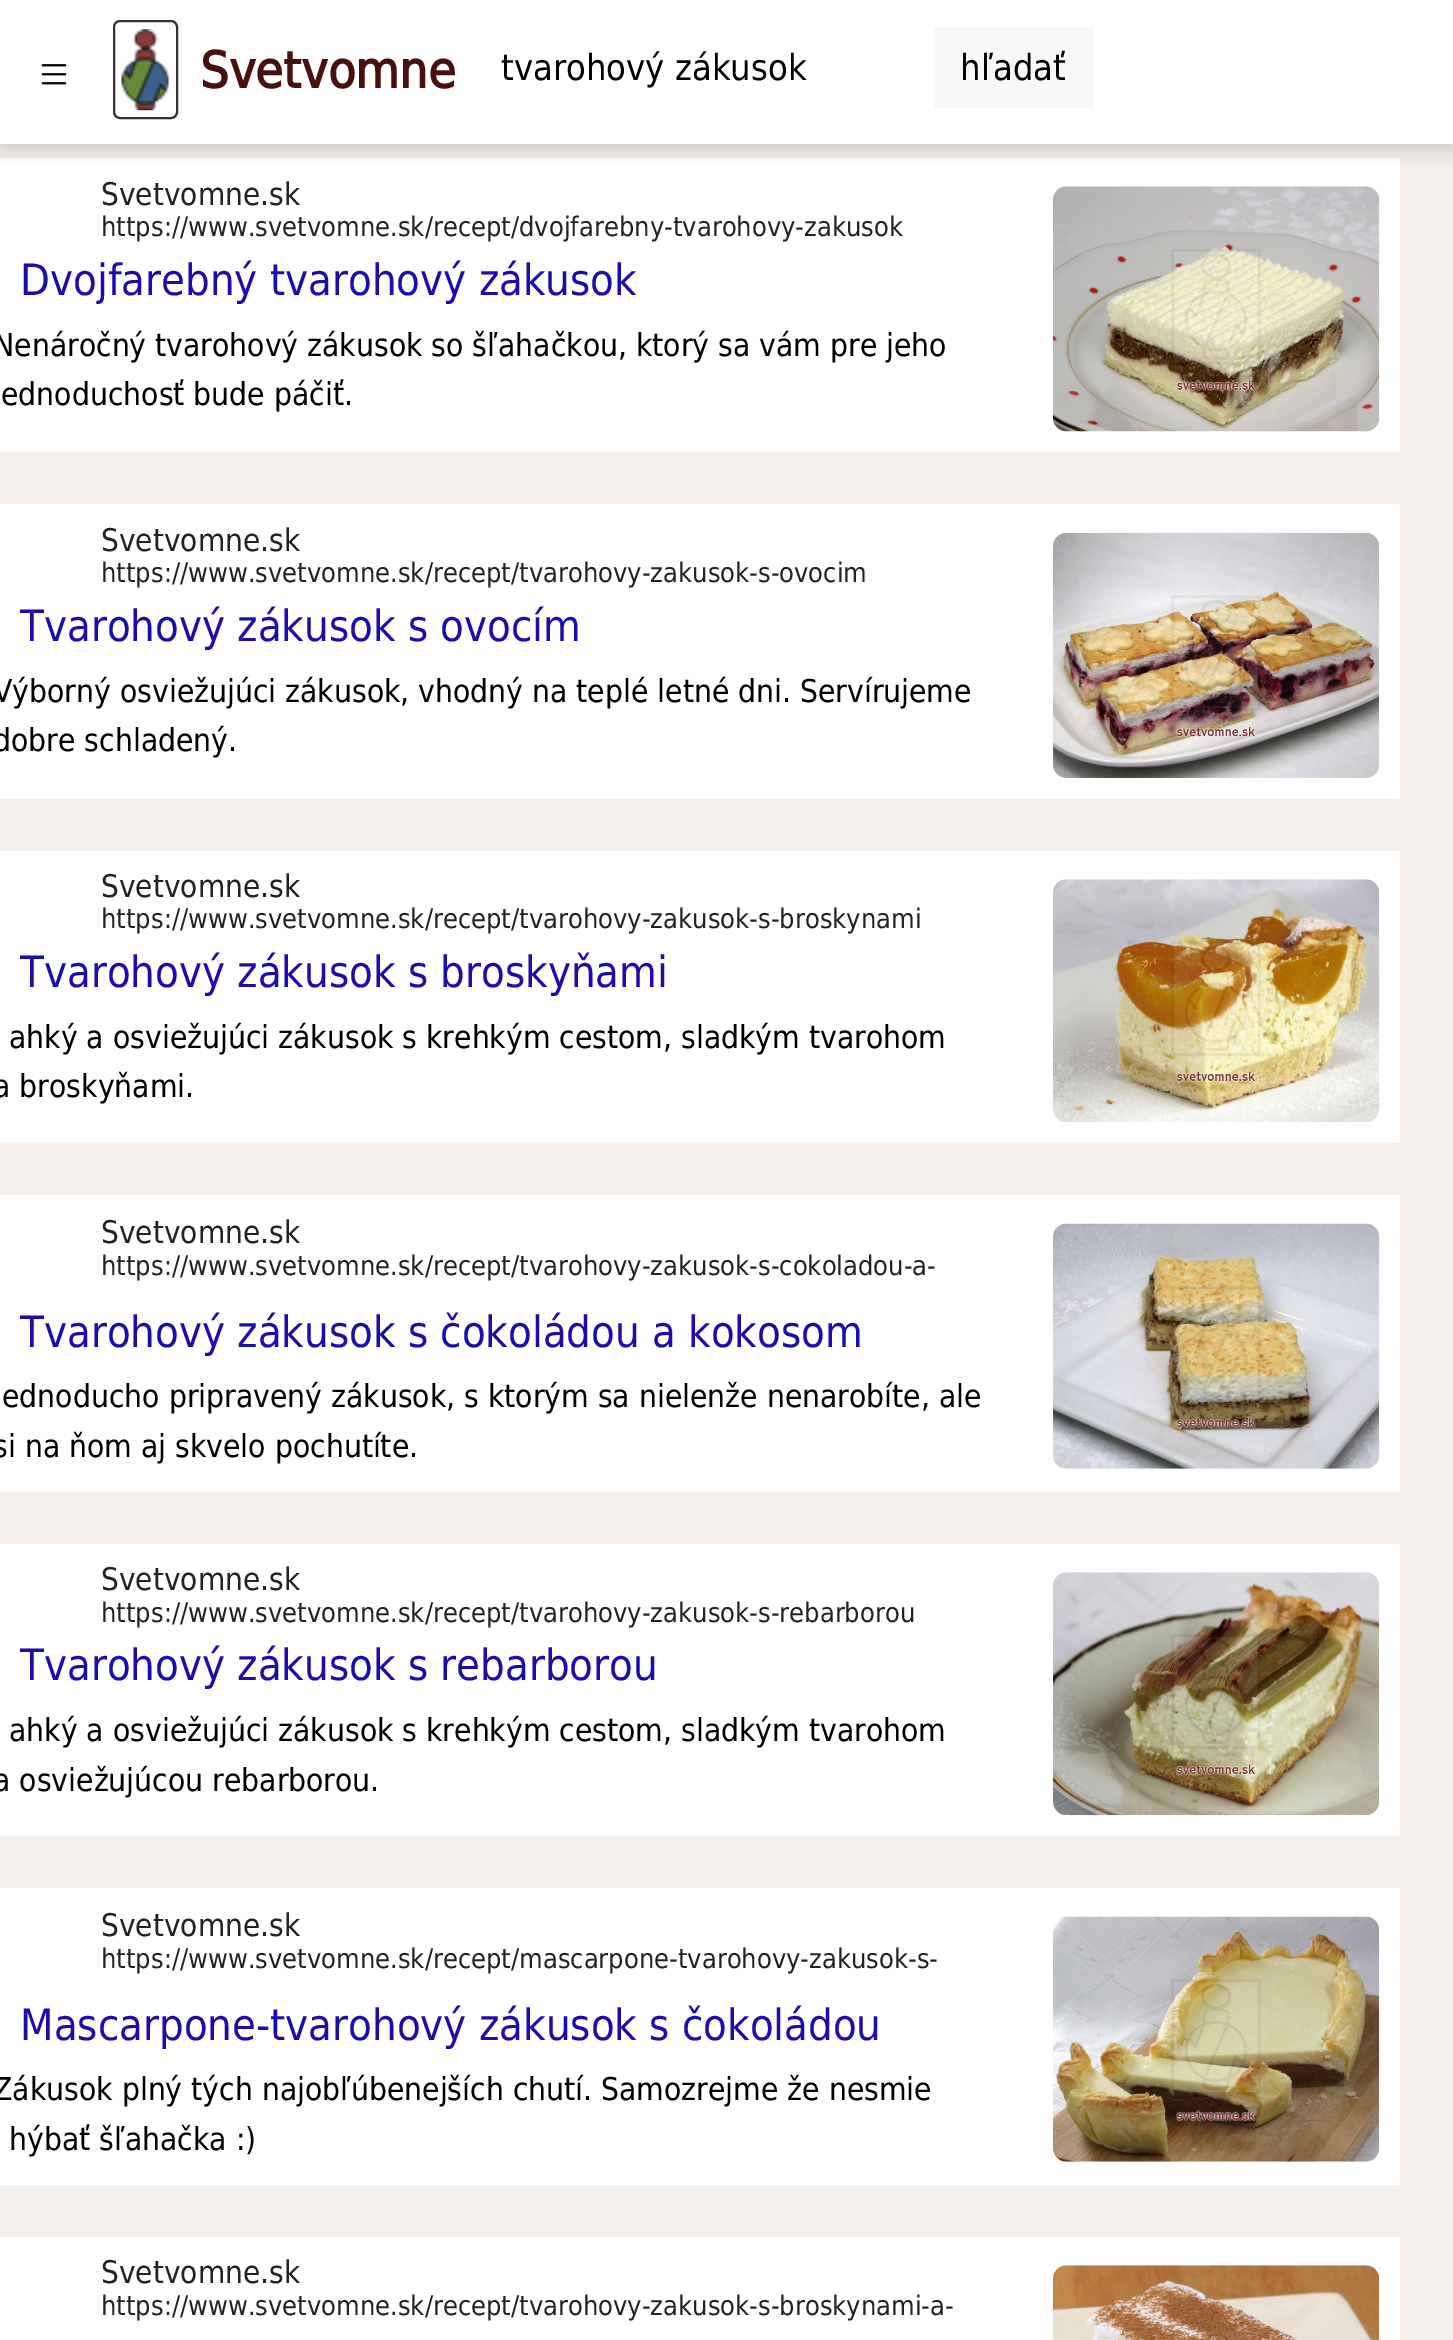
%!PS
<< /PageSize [1453 2340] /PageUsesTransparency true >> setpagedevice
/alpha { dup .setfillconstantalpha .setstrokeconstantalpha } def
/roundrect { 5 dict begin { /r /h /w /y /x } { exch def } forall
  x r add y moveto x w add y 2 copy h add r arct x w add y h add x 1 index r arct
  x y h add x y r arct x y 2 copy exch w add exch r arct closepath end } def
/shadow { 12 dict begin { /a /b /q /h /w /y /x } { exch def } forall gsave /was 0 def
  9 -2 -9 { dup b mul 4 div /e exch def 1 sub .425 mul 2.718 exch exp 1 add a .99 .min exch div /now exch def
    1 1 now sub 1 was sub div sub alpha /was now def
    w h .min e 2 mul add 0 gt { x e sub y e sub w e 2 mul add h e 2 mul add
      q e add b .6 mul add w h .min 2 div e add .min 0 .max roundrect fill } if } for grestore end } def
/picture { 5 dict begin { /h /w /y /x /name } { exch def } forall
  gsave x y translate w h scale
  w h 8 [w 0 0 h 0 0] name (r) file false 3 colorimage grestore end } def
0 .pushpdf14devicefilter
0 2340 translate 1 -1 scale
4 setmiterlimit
0.953 0.933 0.914 setrgbcolor
0 0 1453 2340 rectfill
1 setgray
0 158 1400 294 rectfill
0 setgray
0 5 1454 144 0 9 0.15 shadow
1 setgray
0 0 1453 144 rectfill
(img1.rgb) 41 64 26 21 picture
0.2 setgray
2 setlinewidth
114 21 63 97 6 roundrect stroke
(img2.rgb) 121 29 49 82 picture
/DejaVuSans-Bold [50.25 0 0 -50.25 0 0] selectfont
0.278 0.063 0.059 setrgbcolor
200 88 moveto (Svetvomne) show
/DejaVuSans-Regular [36 0 0 -36 0 0] selectfont
0 setgray
501 80 moveto (tvarohový zákusok) show
0.973 setgray
934 27 160 81 rectfill
0 setgray
960 80 moveto (hľadať) show
/DejaVuSans-Regular [31.25 0 0 -31.25 0 0] selectfont
0.133 setgray
101 205 moveto (Svetvomne.sk) show
/DejaVuSans-Regular [27 0 0 -27 0 0] selectfont
101 236 moveto (https://www.svetvomne.sk/recept/dvojfarebny-tvarohovy-zakusok) show
/DejaVuSans-Regular [43.25 0 0 -43.25 0 0] selectfont
0.102 0.051 0.675 setrgbcolor
20 295 moveto (Dvojfarebný tvarohový zákusok) show
/DejaVuSans-Regular [31.5 0 0 -31.5 0 0] selectfont
0 setgray
-7 356 moveto (Nenáročný tvarohový zákusok so šľahačkou, ktorý sa vám pre jeho) show
1 405 moveto (ednoduchosť bude páčiť.) show
(img3.rgb) 1053 186 327 246 picture
1 setgray
0 504 1400 295 rectfill
/DejaVuSans-Regular [31.25 0 0 -31.25 0 0] selectfont
0.133 setgray
101 551 moveto (Svetvomne.sk) show
/DejaVuSans-Regular [27 0 0 -27 0 0] selectfont
101 582 moveto (https://www.svetvomne.sk/recept/tvarohovy-zakusok-s-ovocim) show
/DejaVuSans-Regular [43.25 0 0 -43.25 0 0] selectfont
0.102 0.051 0.675 setrgbcolor
20 641 moveto (Tvarohový zákusok s ovocím) show
/DejaVuSans-Regular [31.5 0 0 -31.5 0 0] selectfont
0 setgray
-7 702 moveto (Výborný osviežujúci zákusok, vhodný na teplé letné dni. Servírujeme) show
-7 751 moveto (dobre schladený.) show
(img4.rgb) 1053 532 327 246 picture
1 setgray
0 851 1400 292 rectfill
/DejaVuSans-Regular [31.25 0 0 -31.25 0 0] selectfont
0.133 setgray
101 897 moveto (Svetvomne.sk) show
/DejaVuSans-Regular [27 0 0 -27 0 0] selectfont
101 928 moveto (https://www.svetvomne.sk/recept/tvarohovy-zakusok-s-broskynami) show
/DejaVuSans-Regular [43.25 0 0 -43.25 0 0] selectfont
0.102 0.051 0.675 setrgbcolor
20 987 moveto (Tvarohový zákusok s broskyňami) show
/DejaVuSans-Regular [31.5 0 0 -31.5 0 0] selectfont
0 setgray
9 1048 moveto (ahký a osviežujúci zákusok s krehkým cestom, sladkým tvarohom) show
-7 1097 moveto (a broskyňami.) show
(img5.rgb) 1053 879 327 243 picture
1 setgray
0 1195 1400 297 rectfill
/DejaVuSans-Regular [31.25 0 0 -31.25 0 0] selectfont
0.133 setgray
101 1243 moveto (Svetvomne.sk) show
/DejaVuSans-Regular [27 0 0 -27 0 0] selectfont
101 1275 moveto (https://www.svetvomne.sk/recept/tvarohovy-zakusok-s-cokoladou-a-) show
/DejaVuSans-Regular [43.25 0 0 -43.25 0 0] selectfont
0.102 0.051 0.675 setrgbcolor
20 1347 moveto (Tvarohový zákusok s čokoládou a kokosom) show
/DejaVuSans-Regular [31.5 0 0 -31.5 0 0] selectfont
0 setgray
2 1407 moveto (ednoducho pripravený zákusok, s ktorým sa nielenže nenarobíte, ale) show
-7 1457 moveto (si na ňom aj skvelo pochutíte.) show
(img6.rgb) 1053 1223 327 246 picture
1 setgray
0 1544 1400 292 rectfill
/DejaVuSans-Regular [31.25 0 0 -31.25 0 0] selectfont
0.133 setgray
101 1590 moveto (Svetvomne.sk) show
/DejaVuSans-Regular [27 0 0 -27 0 0] selectfont
101 1622 moveto (https://www.svetvomne.sk/recept/tvarohovy-zakusok-s-rebarborou) show
/DejaVuSans-Regular [43.25 0 0 -43.25 0 0] selectfont
0.102 0.051 0.675 setrgbcolor
20 1680 moveto (Tvarohový zákusok s rebarborou) show
/DejaVuSans-Regular [31.5 0 0 -31.5 0 0] selectfont
0 setgray
9 1741 moveto (ahký a osviežujúci zákusok s krehkým cestom, sladkým tvarohom) show
-7 1791 moveto (a osviežujúcou rebarborou.) show
(img7.rgb) 1053 1572 327 244 picture
1 setgray
0 1888 1400 297 rectfill
/DejaVuSans-Regular [31.25 0 0 -31.25 0 0] selectfont
0.133 setgray
101 1936 moveto (Svetvomne.sk) show
/DejaVuSans-Regular [27 0 0 -27 0 0] selectfont
101 1968 moveto (https://www.svetvomne.sk/recept/mascarpone-tvarohovy-zakusok-s-) show
/DejaVuSans-Regular [43.25 0 0 -43.25 0 0] selectfont
0.102 0.051 0.675 setrgbcolor
20 2040 moveto (Mascarpone-tvarohový zákusok s čokoládou) show
/DejaVuSans-Regular [31.5 0 0 -31.5 0 0] selectfont
0 setgray
-7 2100 moveto (Zákusok plný tých najobľúbenejších chutí. Samozrejme že nesmie) show
9 2150 moveto (hýbať šľahačka :\)) show
(img8.rgb) 1053 1916 327 246 picture
1 setgray
0 2237 1400 103 rectfill
/DejaVuSans-Regular [31.25 0 0 -31.25 0 0] selectfont
0.133 setgray
101 2283 moveto (Svetvomne.sk) show
/DejaVuSans-Regular [27 0 0 -27 0 0] selectfont
101 2315 moveto (https://www.svetvomne.sk/recept/tvarohovy-zakusok-s-broskynami-a-) show
(img9.rgb) 1053 2265 327 75 picture
.poppdf14devicefilter showpage
